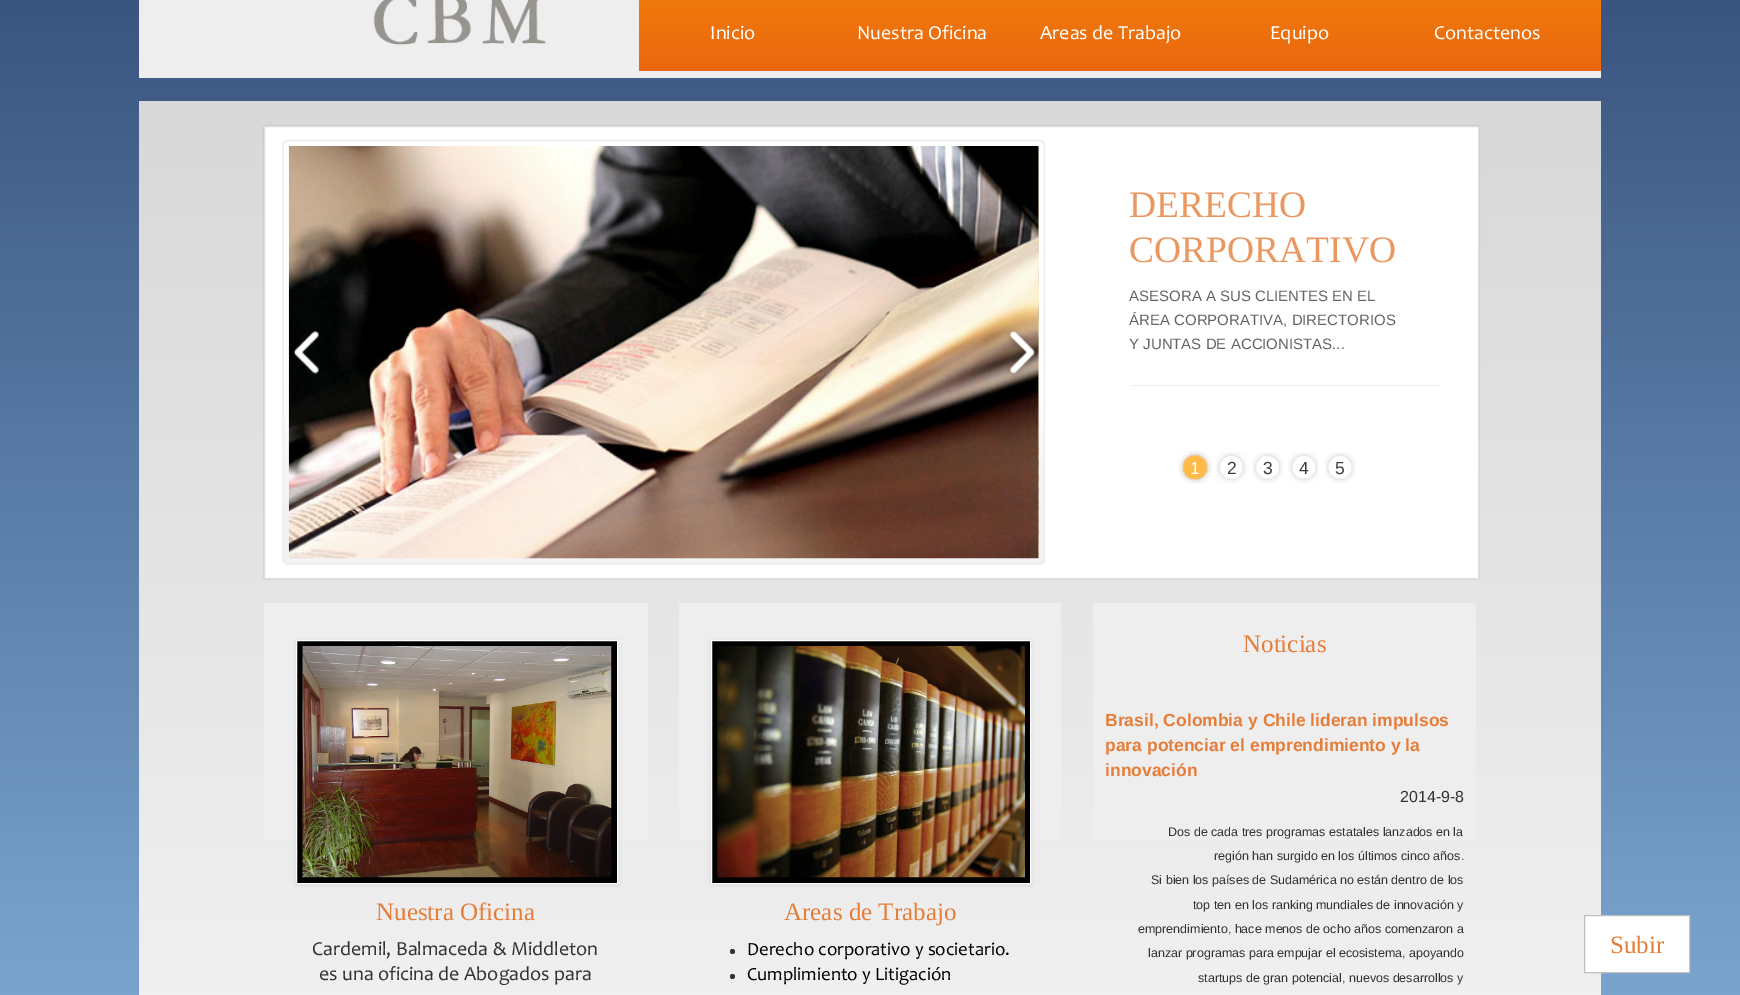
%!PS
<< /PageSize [1740 995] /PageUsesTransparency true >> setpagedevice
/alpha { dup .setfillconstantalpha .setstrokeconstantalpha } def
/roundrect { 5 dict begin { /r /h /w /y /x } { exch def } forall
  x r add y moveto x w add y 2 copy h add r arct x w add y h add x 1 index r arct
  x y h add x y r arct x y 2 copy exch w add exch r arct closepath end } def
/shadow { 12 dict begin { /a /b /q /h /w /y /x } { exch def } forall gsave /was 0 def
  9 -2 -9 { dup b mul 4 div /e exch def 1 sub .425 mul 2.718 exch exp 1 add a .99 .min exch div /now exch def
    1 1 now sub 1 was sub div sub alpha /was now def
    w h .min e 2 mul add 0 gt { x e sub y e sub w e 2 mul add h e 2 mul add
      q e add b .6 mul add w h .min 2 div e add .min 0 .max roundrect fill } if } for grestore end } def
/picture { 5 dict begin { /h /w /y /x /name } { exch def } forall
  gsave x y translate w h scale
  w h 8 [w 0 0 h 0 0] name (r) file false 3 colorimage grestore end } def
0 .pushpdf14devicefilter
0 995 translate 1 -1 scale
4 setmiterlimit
1 setgray
0 0 1740 995 rectfill
gsave newpath 0 0 moveto 1740 0 lineto 1740 995 lineto 0 995 lineto closepath clip newpath
<< /ShadingType 2 /ColorSpace /DeviceRGB /Coords [870 -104 870 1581] /Extend [true true] /Function << /FunctionType 2 /Domain [0 1] /C0 [0.2 0.302 0.467] /C1 [0.627 0.824 0.992] /N 1 >> >> shfill grestore
0.933 setgray
139 0 1462 78 rectfill
(img1.rgb) 373 0 173 45 picture
gsave newpath 1583 0 moveto 1601 0 lineto 1601 71 lineto 1583 71 lineto closepath clip newpath
<< /ShadingType 2 /ColorSpace /DeviceRGB /Coords [1120 -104 1120 71] /Extend [true true] /Function << /FunctionType 2 /Domain [0 1] /C0 [0.973 0.58 0.024] /C1 [0.918 0.404 0.059] /N 1 >> >> shfill grestore
gsave newpath 639 0 moveto 828 0 lineto 828 71 lineto 639 71 lineto closepath clip newpath
<< /ShadingType 2 /ColorSpace /DeviceRGB /Coords [733 -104 733 71] /Extend [true true] /Function << /FunctionType 2 /Domain [0 1] /C0 [0.973 0.58 0.024] /C1 [0.918 0.404 0.059] /N 1 >> >> shfill grestore
/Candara-Regular [20 0 0 -20 0 0] selectfont
1 setgray
710 39 moveto (Inicio) show
gsave newpath 828 0 moveto 1016 0 lineto 1016 71 lineto 828 71 lineto closepath clip newpath
<< /ShadingType 2 /ColorSpace /DeviceRGB /Coords [922 -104 922 71] /Extend [true true] /Function << /FunctionType 2 /Domain [0 1] /C0 [0.973 0.58 0.024] /C1 [0.918 0.404 0.059] /N 1 >> >> shfill grestore
857 39 moveto (Nuestra Oficina) show
gsave newpath 1016 0 moveto 1205 0 lineto 1205 71 lineto 1016 71 lineto closepath clip newpath
<< /ShadingType 2 /ColorSpace /DeviceRGB /Coords [1111 -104 1111 71] /Extend [true true] /Function << /FunctionType 2 /Domain [0 1] /C0 [0.973 0.58 0.024] /C1 [0.918 0.404 0.059] /N 1 >> >> shfill grestore
1040 39 moveto (Areas de Trabajo) show
gsave newpath 1205 0 moveto 1394 0 lineto 1394 71 lineto 1205 71 lineto closepath clip newpath
<< /ShadingType 2 /ColorSpace /DeviceRGB /Coords [1299 -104 1299 71] /Extend [true true] /Function << /FunctionType 2 /Domain [0 1] /C0 [0.973 0.58 0.024] /C1 [0.918 0.404 0.059] /N 1 >> >> shfill grestore
1270 39 moveto (Equipo) show
gsave newpath 1394 0 moveto 1583 0 lineto 1583 71 lineto 1394 71 lineto closepath clip newpath
<< /ShadingType 2 /ColorSpace /DeviceRGB /Coords [1488 -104 1488 71] /Extend [true true] /Function << /FunctionType 2 /Domain [0 1] /C0 [0.973 0.58 0.024] /C1 [0.918 0.404 0.059] /N 1 >> >> shfill grestore
1434 39 moveto (Contactenos) show
gsave newpath 139 101 moveto 1601 101 lineto 1601 995 lineto 139 995 lineto closepath clip newpath
<< /ShadingType 2 /ColorSpace /DeviceRGB /Coords [870 101 870 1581] /Extend [true true] /Function << /FunctionType 2 /Domain [0 1] /C0 [0.847 0.847 0.847] /C1 [1 1 1] /N 1 >> >> shfill grestore
0 setgray
264 126 1215 453 0 0.5 0.2 shadow
1 setgray
newpath 264.5 126.5 moveto 1478.5 126.5 lineto 1478.5 578.5 lineto 264.5 578.5 lineto closepath gsave fill grestore
0.875 setgray
stroke
(img2.rgb) 282 139 763 426 picture
(img3.rgb) 288 146 751 413 picture
(img4.rgb) 1038 146 1 413 picture
/LiberationSerif-Regular [37.5 0 0 -37.5 0 0] selectfont
0.918 0.592 0.376 setrgbcolor
1129 217 moveto (DERECHO) show
1129 262 moveto (CORPORATIVO) show
/LiberationSans-Regular [15 0 0 -15 0 0] selectfont
0.392 setgray
1129 301 moveto (ASESORA A SUS CLIENTES EN EL) show
1129 325 moveto (ÁREA CORPORATIVA, DIRECTORIOS) show
1129 349 moveto (Y JUNTAS DE ACCIONISTAS...) show
(img5.rgb) 293 330 26 44 picture
(img6.rgb) 1006 328 33 50 picture
(img7.rgb) 1178 451 34 33 picture
/LiberationSans-Regular [17.5 0 0 -17.5 0 0] selectfont
1 setgray
1190 474 moveto (1) show
(img8.rgb) 1216 452 31 31 picture
0.239 setgray
1227 474 moveto (2) show
(img9.rgb) 1252 452 31 31 picture
1263 474 moveto (3) show
(img10.rgb) 1288 452 31 31 picture
1299 474 moveto (4) show
(img11.rgb) 1325 452 31 31 picture
1335 474 moveto (5) show
0.933 setgray
1131 385 309 1 rectfill
264 603 384 238 rectfill
0 setgray
296 641 322 244 0 2 0.1 shadow
newpath 296.5 640.5 moveto 617.5 640.5 lineto 617.5 883.5 lineto 296.5 883.5 lineto closepath gsave fill grestore
1 setgray
stroke
(img12.rgb) 302 646 310 232 picture
/LiberationSerif-Regular [25 0 0 -25 0 0] selectfont
0.898 0.49 0.22 setrgbcolor
376 920 moveto (Nuestra Oficina) show
/Candara-Regular [20 0 0 -20 0 0] selectfont
0.2 setgray
312 955 moveto (Cardemil, Balmaceda & Middleton) show
319 980 moveto (es una oficina de Abogados para) show
0.933 setgray
679 603 382 238 rectfill
0 setgray
711 641 320 244 0 2 0.1 shadow
newpath 711.5 640.5 moveto 1030.5 640.5 lineto 1030.5 883.5 lineto 711.5 883.5 lineto closepath gsave fill grestore
1 setgray
stroke
(img13.rgb) 717 646 308 232 picture
/LiberationSerif-Regular [25 0 0 -25 0 0] selectfont
0.898 0.49 0.22 setrgbcolor
784 920 moveto (Areas de Trabajo) show
0.2 setgray
newpath 732.5 951.5 2.5 0 360 arc closepath fill
/Candara-Regular [18.75 0 0 -18.75 0 0] selectfont
0 setgray
747 955 moveto (Derecho corporativo y societario.) show
0.2 setgray
newpath 732.5 976.5 2.5 0 360 arc closepath fill
0 setgray
747 980 moveto (Cumplimiento y Litigación) show
0.933 setgray
1093 603 383 238 rectfill
/LiberationSerif-Regular [25 0 0 -25 0 0] selectfont
0.898 0.49 0.22 setrgbcolor
1243 652 moveto (Noticias) show
/LiberationSans-Bold [17.5 0 0 -17.5 0 0] selectfont
1105 726 moveto (Brasil, Colombia y Chile lideran impulsos) show
1105 751 moveto (para potenciar el emprendimiento y la) show
1105 776 moveto (innovación) show
/LiberationSans-Regular [16 0 0 -16 0 0] selectfont
0.2 setgray
1400 802 moveto (2014-9-8) show
/LiberationSans-Regular [12.5 0 0 -12.5 0 0] selectfont
1168 836 moveto (Dos de cada tres programas estatales lanzados en la) show
1214 860 moveto (región han surgido en los últimos cinco años.) show
1151 884 moveto (Si bien los países de Sudamérica no están dentro de los) show
1193 909 moveto (top ten en los ranking mundiales de innovación y) show
1138 933 moveto (emprendimiento, hace menos de ocho años comenzaron a) show
1148 957 moveto (lanzar programas para empujar el ecosistema, apoyando) show
1198 982 moveto (startups de gran potencial, nuevos desarrollos y) show
1 setgray
newpath 1584.5 915.5 moveto 1689.5 915.5 lineto 1689.5 972.5 lineto 1584.5 972.5 lineto closepath gsave fill grestore
0.753 setgray
stroke
/LiberationSerif-Regular [25 0 0 -25 0 0] selectfont
0.898 0.49 0.22 setrgbcolor
1610 953 moveto (Subir) show
.poppdf14devicefilter showpage
